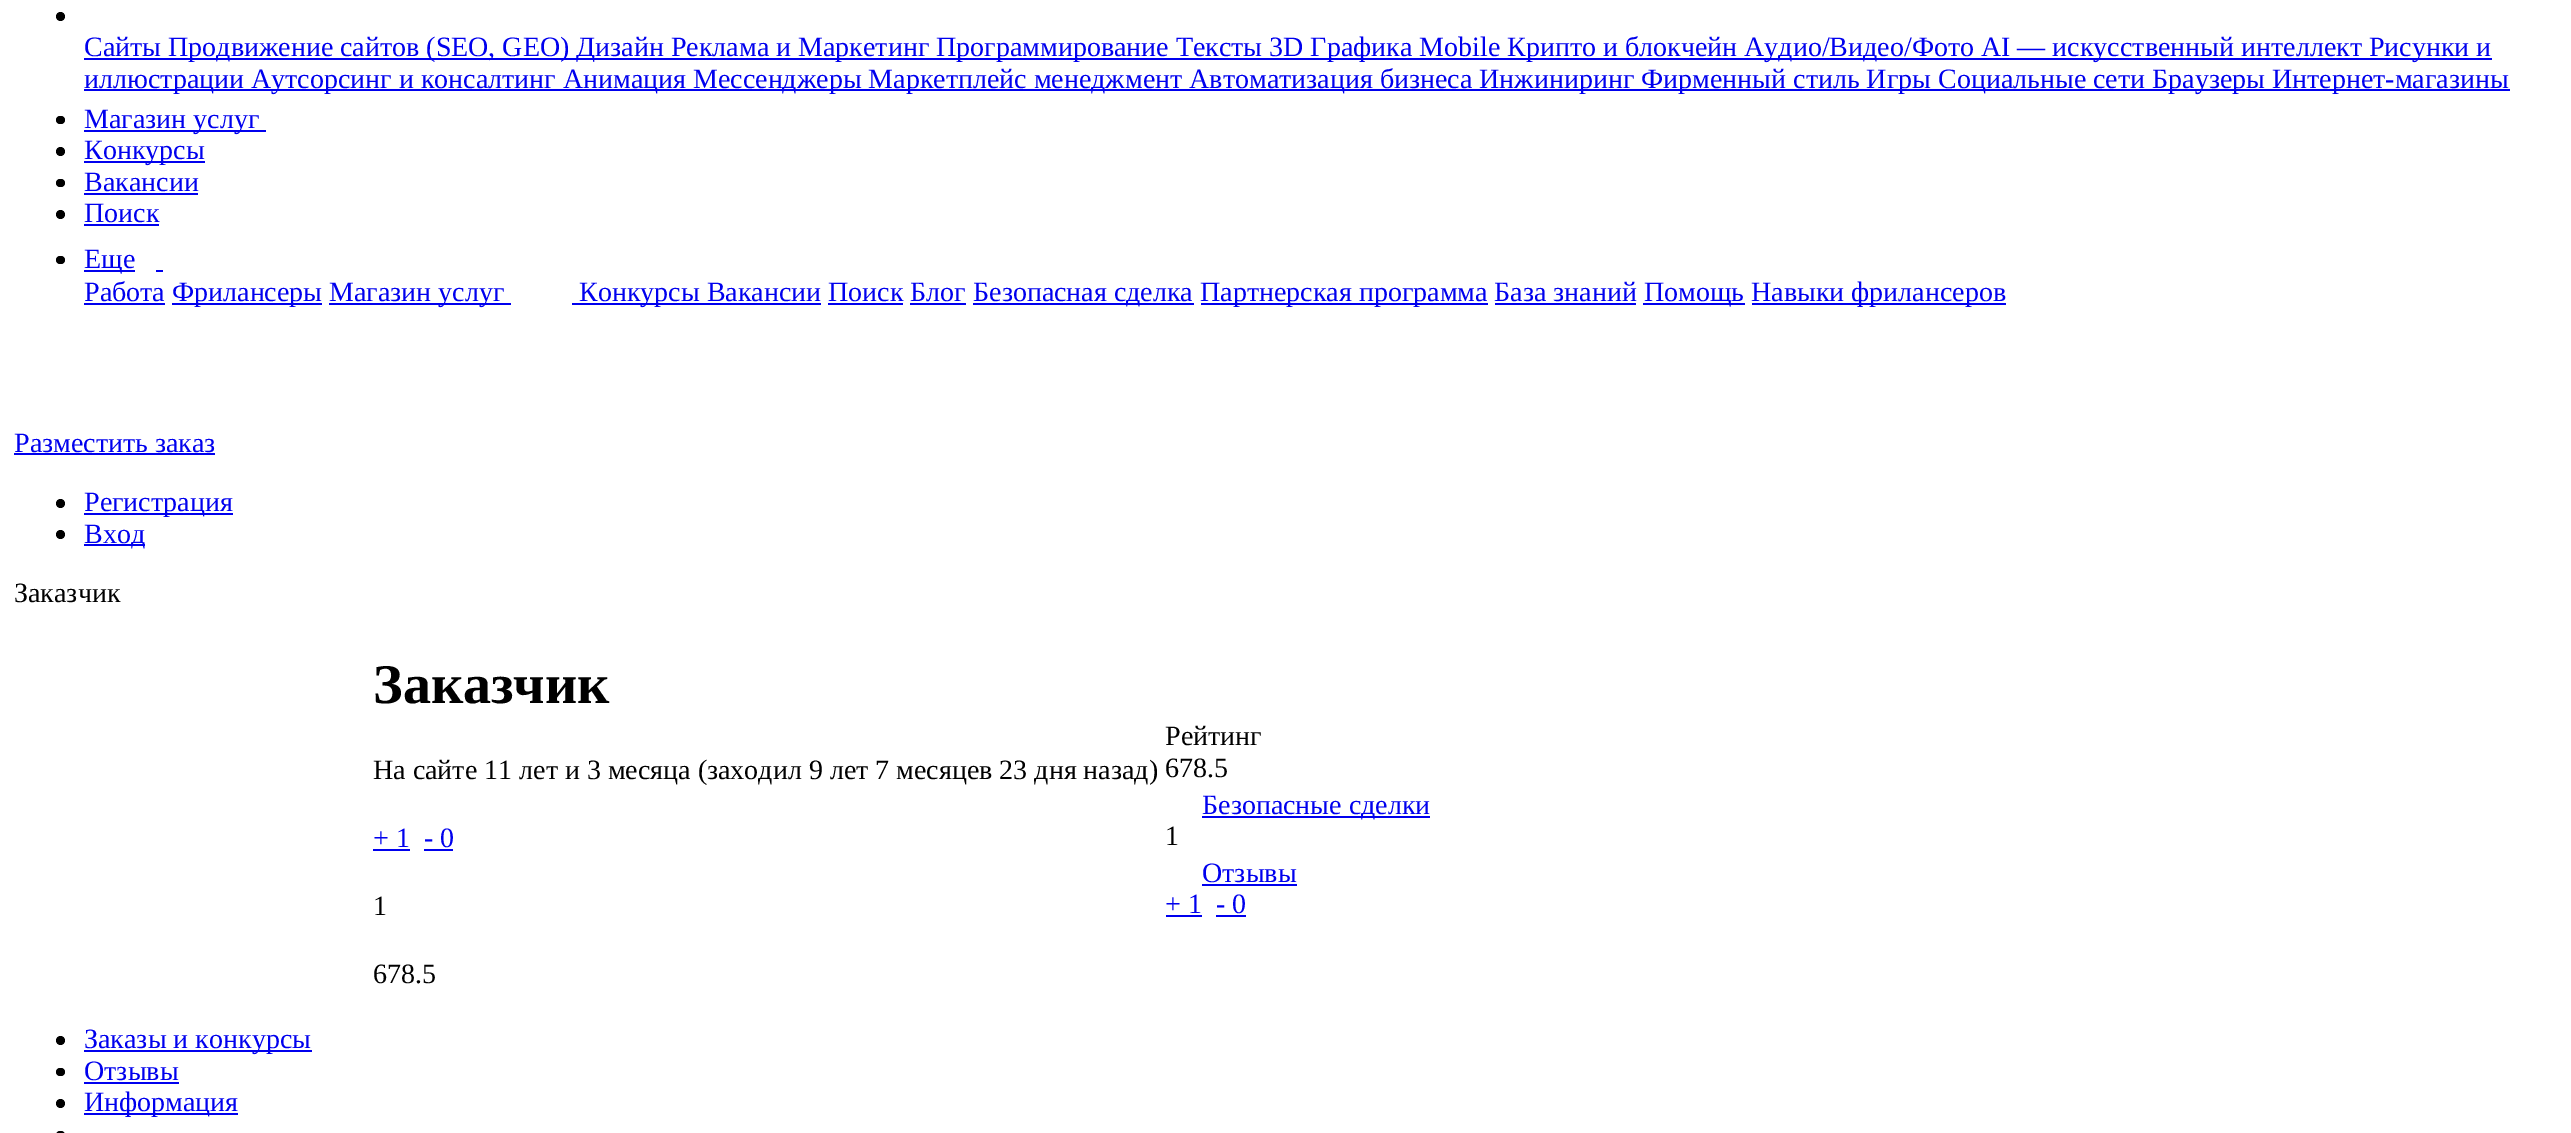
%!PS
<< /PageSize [2571 1133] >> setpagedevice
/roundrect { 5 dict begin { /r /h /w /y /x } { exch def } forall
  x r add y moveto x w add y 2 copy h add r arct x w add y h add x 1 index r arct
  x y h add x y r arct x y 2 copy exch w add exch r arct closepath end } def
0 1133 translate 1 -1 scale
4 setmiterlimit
1 setgray
0 0 2571 1133 rectfill
0 setgray
newpath 60.5 16.5 4.5 0 360 arc closepath fill
0 0 0.933 setrgbcolor
84 58 2408 2 rectfill
/LiberationSerif-Regular [28 0 0 -28 0 0] selectfont
84 56 moveto (Сайты Продвижение сайтов \(SEO, GEO\) Дизайн Реклама и Маркетинг Программирование Тексты 3D Графика Mobile Крипто и блокчейн Аудио/Видео/Фото AI — искусственный интеллект Рисунки и) show
84 89 2426 2 rectfill
84 88 moveto (иллюстрации Аутсорсинг и консалтинг Анимация Мессенджеры Маркетплейс менеджмент Автоматизация бизнеса Инжиниринг Фирменный стиль Игры Социальные сети Браузеры Интернет-магазины) show
0 setgray
56 116 9 8 4 roundrect fill
0 0 0.933 setrgbcolor
84 130 182 2 rectfill
84 128 moveto (Магазин услуг) show
0 setgray
newpath 60.5 151.5 4.5 0 360 arc closepath fill
0 0 0.933 setrgbcolor
84 161 121 2 rectfill
84 159 moveto (Конкурсы) show
0 setgray
56 179 9 8 4 roundrect fill
0 0 0.933 setrgbcolor
84 191 moveto (Вакансии) show
84 193 114 2 rectfill
0 setgray
newpath 60.5 214.5 4.5 0 360 arc closepath fill
0 0 0.933 setrgbcolor
84 222 moveto (Поиск) show
84 224 75 2 rectfill
0 setgray
56 256 9 8 4 roundrect fill
0 0 0.933 setrgbcolor
84 270 51 2 rectfill
84 268 moveto (Еще) show
156 270 7 2 rectfill
84 301 moveto (Работа) show
84 303 81 2 rectfill
172 303 150 2 rectfill
172 301 moveto (Фрилансеры) show
329 303 182 2 rectfill
329 301 moveto (Магазин услуг) show
572 303 249 2 rectfill
579 301 moveto (Конкурсы Вакансии Поиск Блог) show
973 303 221 2 rectfill
973 301 moveto (Безопасная сделка) show
1201 303 287 2 rectfill
1200 301 moveto (Партнерская программа База знаний) show
1643 303 102 2 rectfill
1644 301 moveto (Помощь) show
1752 303 254 2 rectfill
1751 301 moveto (Навыки фрилансеров) show
828 303 75 2 rectfill
910 303 56 2 rectfill
1495 303 141 2 rectfill
14 452 moveto (Разместить заказ) show
14 453 201 2 rectfill
0 setgray
newpath 60.5 503.5 4.5 0 360 arc closepath fill
0 0 0.933 setrgbcolor
84 513 149 2 rectfill
84 511 moveto (Регистрация) show
0 setgray
newpath 60.5 534.5 4.5 0 360 arc closepath fill
0 0 0.933 setrgbcolor
84 544 61 2 rectfill
84 543 moveto (Вход) show
0 setgray
14 602 moveto (Заказчик) show
/LiberationSerif-Bold [56 0 0 -56 0 0] selectfont
373 703 moveto (Заказчик) show
/LiberationSerif-Regular [28 0 0 -28 0 0] selectfont
373 779 moveto (На сайте 11 лет и 3 месяца \(заходил 9 лет 7 месяцев 23 дня назад\)) show
0 0 0.933 setrgbcolor
373 847 moveto (+ 1) show
373 849 37 2 rectfill
424 847 moveto (- 0) show
424 849 29 2 rectfill
0 setgray
373 915 moveto (1) show
373 983 moveto (678.5) show
1165 745 moveto (Рейтинг) show
1165 777 moveto (678.5) show
0 0 0.933 setrgbcolor
1202 816 228 2 rectfill
1202 814 moveto (Безопасные сделки) show
0 setgray
1165 845 moveto (1) show
0 0 0.933 setrgbcolor
1202 882 moveto (Отзывы) show
1202 884 95 2 rectfill
1165 913 moveto (+ 1) show
1166 915 36 2 rectfill
1216 913 moveto (- 0) show
1216 915 30 2 rectfill
0 setgray
newpath 60.5 1040.5 4.5 0 360 arc closepath fill
0 0 0.933 setrgbcolor
84 1050 228 2 rectfill
84 1048 moveto (Заказы и конкурсы) show
0 setgray
56 1068 9 8 4 roundrect fill
0 0 0.933 setrgbcolor
84 1080 moveto (Отзывы) show
84 1082 95 2 rectfill
0 setgray
newpath 60.5 1103.5 4.5 0 360 arc closepath fill
0 0 0.933 setrgbcolor
84 1113 154 2 rectfill
84 1111 moveto (Информация) show
0 setgray
56 1131 9 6 4 roundrect fill
showpage
